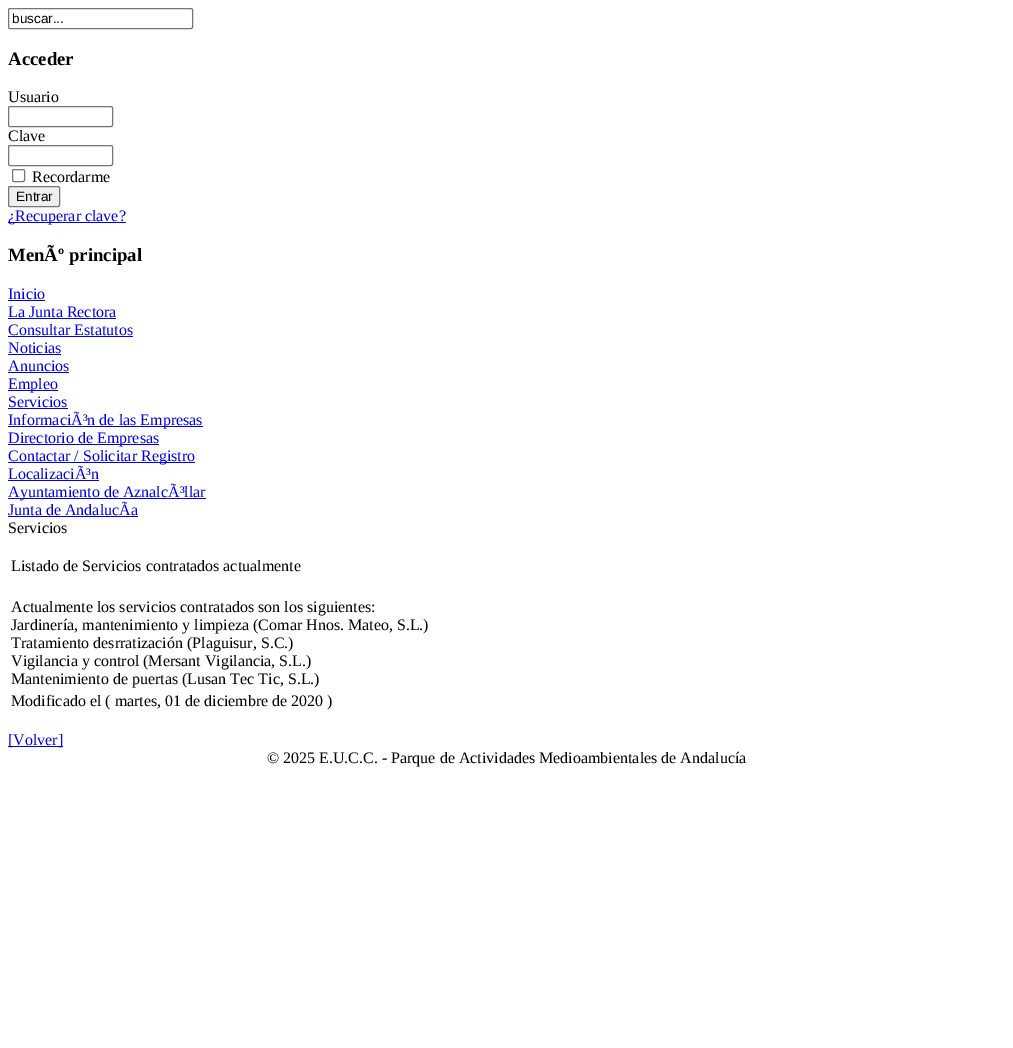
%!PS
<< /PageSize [1013 1048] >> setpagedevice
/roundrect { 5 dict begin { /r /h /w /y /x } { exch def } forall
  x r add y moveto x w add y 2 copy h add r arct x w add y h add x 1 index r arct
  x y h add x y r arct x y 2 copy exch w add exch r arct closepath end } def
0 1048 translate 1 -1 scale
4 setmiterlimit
1 setgray
0 0 1013 1048 rectfill
0.463 setgray
8.5 8.5 184 20 1.5 roundrect stroke
/LiberationSans-Regular [13.5 0 0 -13.5 0 0] selectfont
0 setgray
12 23 moveto (buscar...) show
/LiberationSerif-Bold [18.75 0 0 -18.75 0 0] selectfont
8 65 moveto (Acceder) show
/LiberationSerif-Regular [16 0 0 -16 0 0] selectfont
8 102 moveto (Usuario) show
0.463 setgray
8.5 106.5 104 20 1.5 roundrect stroke
0 setgray
8 141 moveto (Clave) show
0.463 setgray
8.5 145.5 104 20 1.5 roundrect stroke
12.5 169.5 12 12 1.5 roundrect stroke
0 setgray
32 182 moveto (Recordarme) show
0.937 setgray
8.5 186.5 51 20 1.5 roundrect gsave fill grestore
0.463 setgray
stroke
/LiberationSans-Regular [13.5 0 0 -13.5 0 0] selectfont
0 setgray
16 201 moveto (Entrar) show
0 0 0.933 setrgbcolor
8 222 118 1 rectfill
/LiberationSerif-Regular [16 0 0 -16 0 0] selectfont
8 221 moveto (¿Recuperar clave?) show
/LiberationSerif-Bold [18.75 0 0 -18.75 0 0] selectfont
0 setgray
8 261 moveto (MenÃº principal) show
/LiberationSerif-Regular [16 0 0 -16 0 0] selectfont
0 0 0.933 setrgbcolor
8 299 moveto (Inicio) show
8 300 37 1 rectfill
8 317 moveto (La Junta Rectora) show
8 318 108 1 rectfill
8 335 moveto (Consultar Estatutos) show
8 336 125 1 rectfill
8 353 moveto (Noticias) show
8 354 53 1 rectfill
8 371 moveto (Anuncios) show
8 372 61 1 rectfill
8 390 50 1 rectfill
8 389 moveto (Empleo) show
8 407 moveto (Servicios) show
8 408 60 1 rectfill
8 426 195 1 rectfill
8 425 moveto (InformaciÃ³n de las Empresas) show
8 444 151 1 rectfill
8 443 moveto (Directorio de Empresas) show
8 462 187 1 rectfill
8 461 moveto (Contactar / Solicitar Registro) show
8 479 moveto (LocalizaciÃ³n) show
8 480 91 1 rectfill
8 498 198 1 rectfill
8 497 moveto (Ayuntamiento de AznalcÃ³llar) show
8 515 moveto (Junta de AndalucÃa) show
8 516 130 1 rectfill
0 setgray
8 533 moveto (Servicios) show
11 571 moveto (Listado de Servicios contratados actualmente) show
11 612 moveto (Actualmente los servicios contratados son los siguientes:) show
11 630 moveto (Jardinería, mantenimiento y limpieza \(Comar Hnos. Mateo, S.L.\)) show
11 648 moveto (Tratamiento desrratización \(Plaguisur, S.C.\)) show
11 666 moveto (Vigilancia y control \(Mersant Vigilancia, S.L.\)) show
11 684 moveto (Mantenimiento de puertas \(Lusan Tec Tic, S.L.\)) show
11 706 moveto (Modificado el \( martes, 01 de diciembre de 2020 \)) show
0 0 0.933 setrgbcolor
8 746 55 1 rectfill
8 745 moveto ([Volver]) show
0 setgray
267 763 moveto (© 2025 E.U.C.C. - Parque de Actividades Medioambientales de Andalucía) show
showpage
